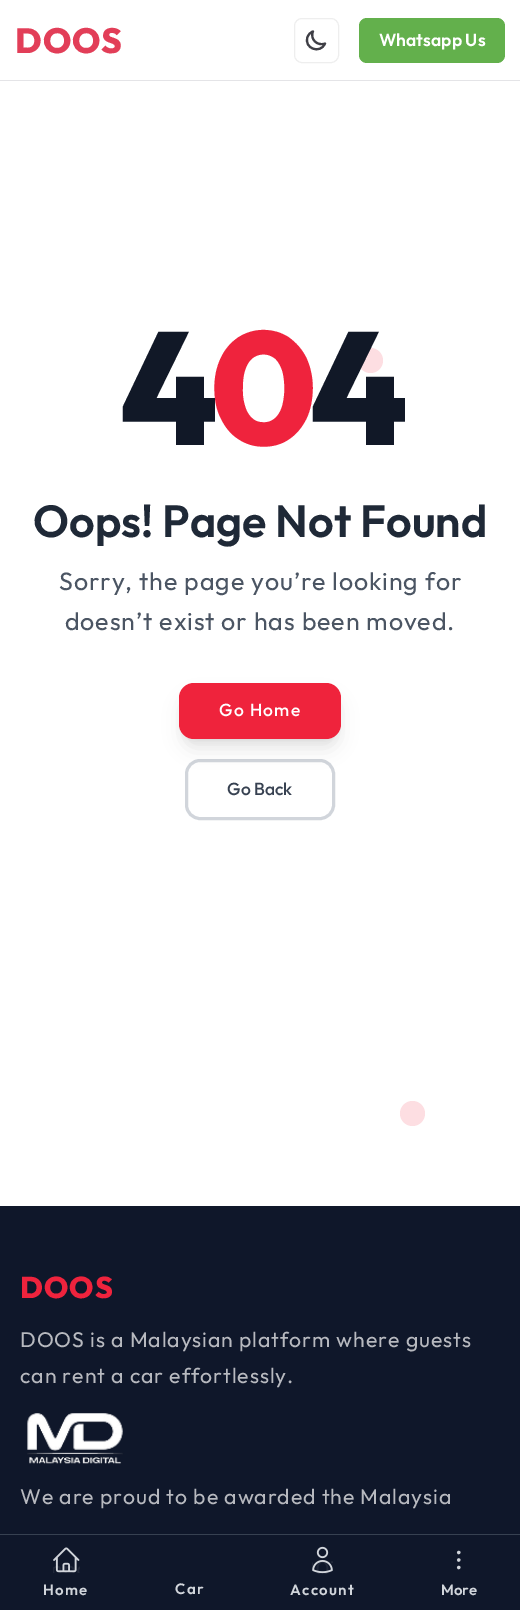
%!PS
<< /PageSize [520 1610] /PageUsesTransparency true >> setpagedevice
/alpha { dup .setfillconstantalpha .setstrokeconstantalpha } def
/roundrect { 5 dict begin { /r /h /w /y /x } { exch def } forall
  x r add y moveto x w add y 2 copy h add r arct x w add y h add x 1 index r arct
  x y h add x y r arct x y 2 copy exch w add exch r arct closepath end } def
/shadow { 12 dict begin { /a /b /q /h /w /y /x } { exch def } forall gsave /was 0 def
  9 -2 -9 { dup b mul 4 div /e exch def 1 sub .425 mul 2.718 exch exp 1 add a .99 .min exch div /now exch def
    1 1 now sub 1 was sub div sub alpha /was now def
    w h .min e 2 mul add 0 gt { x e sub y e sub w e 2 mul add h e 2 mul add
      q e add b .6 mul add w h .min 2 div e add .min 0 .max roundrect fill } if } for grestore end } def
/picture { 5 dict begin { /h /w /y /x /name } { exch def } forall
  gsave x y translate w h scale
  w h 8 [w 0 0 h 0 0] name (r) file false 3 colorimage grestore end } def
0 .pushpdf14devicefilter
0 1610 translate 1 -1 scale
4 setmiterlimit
1 setgray
0 0 520 1610 rectfill
0.894 0.894 0.906 setrgbcolor
0 80 520 1 rectfill
/Outfit-ExtraBold [35 0 0 -35 0 0] selectfont
0.886 0.243 0.345 setrgbcolor
15 53 moveto 0.9 0 (DOOS) ashow
0.933 setgray
294.5 18.5 44 44 7.5 roundrect stroke
0.247 0.247 0.275 setrgbcolor
2.1 setlinewidth
1 setlinecap
1 setlinejoin
newpath 325 43.5 moveto 317.5 46.5 309.5 39 313 31.5 curveto 310 32.5 308.5 34.5 307.5 37 curveto 303.5 48.5 320.5 54.5 325 43.5 curveto closepath stroke
0.388 0.69 0.298 setrgbcolor
359 18 146 45 8 roundrect fill
/Outfit-SemiBold [17.5 0 0 -17.5 0 0] selectfont
1 setgray
379 46 moveto (Whatsapp Us) show
/Outfit-ExtraBold [160 0 0 -160 0 0] selectfont
0.067 0.094 0.153 setrgbcolor
120 445 moveto -8 0 (4) ashow
0.937 0.137 0.239 setrgbcolor
210 445 moveto -8 0 (0) ashow
0.992 0.871 0.886 setrgbcolor
newpath 370.5 360.5 12.5 0 360 arc closepath fill
0.067 0.094 0.153 setrgbcolor
310 445 moveto -8 0 (4) ashow
/Outfit-SemiBold [45 0 0 -45 0 0] selectfont
0.122 0.161 0.216 setrgbcolor
33 537 moveto (Oops! Page Not Found) show
/Outfit-Regular [25 0 0 -25 0 0] selectfont
0.294 0.333 0.388 setrgbcolor
59 590 moveto 0.9 0 (Sorry, the page you’re looking for) ashow
65 630 moveto 0.9 0 (doesn’t exist or has been moved.) ashow
0 setgray
184 693 152 46 10 4 0.1 shadow
0.82 0.835 0.859 setrgbcolor
3 setlinewidth
0 setlinecap
0 setlinejoin
186.5 760.5 147 58 13.5 roundrect stroke
0 setgray
183 699 155 49 11 9.5 0.1 shadow
0.937 0.137 0.235 setrgbcolor
179 683 162 56 15 roundrect fill
/Outfit-Medium [17.5 0 0 -17.5 0 0] selectfont
1 setgray
219 716 moveto 1.25 0 (Go Home) ashow
0.216 0.255 0.318 setrgbcolor
227 795 moveto (Go Back) show
0.992 0.871 0.886 setrgbcolor
newpath 412.5 1113.5 12.5 0 360 arc closepath fill
0.059 0.09 0.165 setrgbcolor
0 1206 520 404 rectfill
/Outfit-ExtraBold [30 0 0 -30 0 0] selectfont
0.937 0.137 0.239 setrgbcolor
20 1298 moveto 1 0 (DOOS) ashow
/Outfit-Regular [21.25 0 0 -21.25 0 0] selectfont
0.718 0.725 0.749 setrgbcolor
20 1347 moveto 0.9 0 (DOOS is a Malaysian platform where guests) ashow
20 1383 moveto 0.9 0 (can rent a car effortlessly.) ashow
(img1.rgb) 27 1413 96 51 picture
20 1504 moveto 0.9 0 (We are proud to be awarded the Malaysia) ashow
0.216 0.255 0.318 setrgbcolor
0 1534 520 1 rectfill
(img2.rgb) 53 1547 27 26 picture
/Outfit-SemiBold [15 0 0 -15 0 0] selectfont
0.82 0.835 0.859 setrgbcolor
43 1595 moveto 1.25 0 (Home) ashow
175 1594 moveto 1.25 0 (Car) ashow
(img3.rgb) 312 1546 21 28 picture
290 1595 moveto 1.25 0 (Account) ashow
(img4.rgb) 456 1550 5 20 picture
441 1595 moveto (More) show
.poppdf14devicefilter showpage
